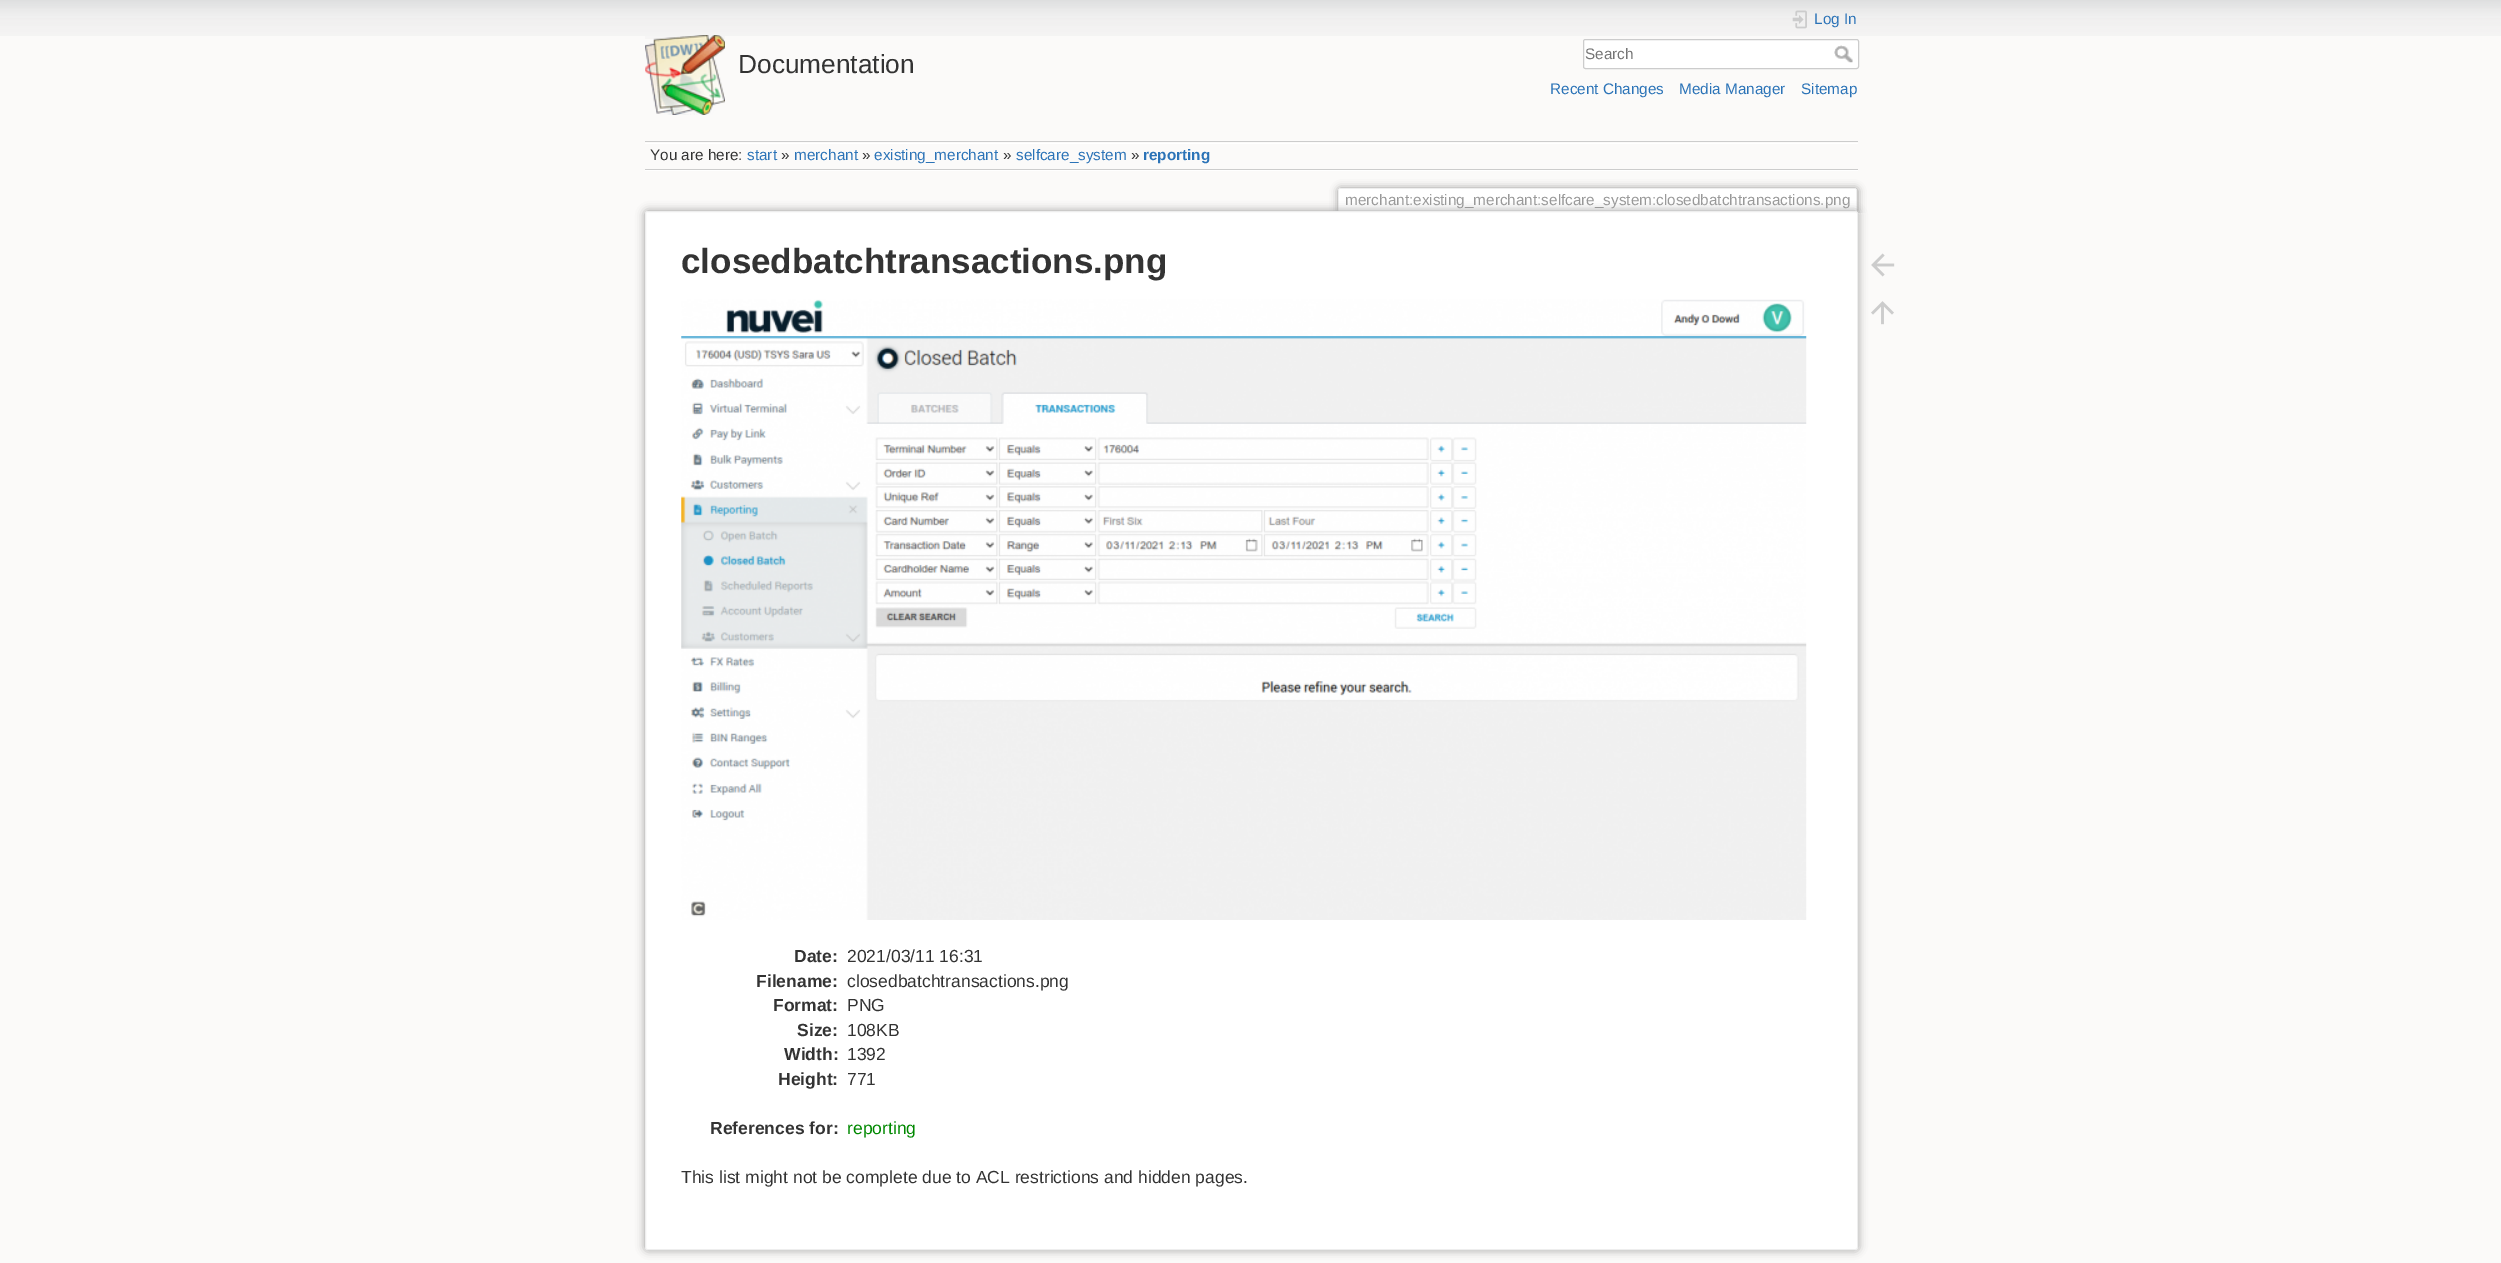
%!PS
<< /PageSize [2501 1263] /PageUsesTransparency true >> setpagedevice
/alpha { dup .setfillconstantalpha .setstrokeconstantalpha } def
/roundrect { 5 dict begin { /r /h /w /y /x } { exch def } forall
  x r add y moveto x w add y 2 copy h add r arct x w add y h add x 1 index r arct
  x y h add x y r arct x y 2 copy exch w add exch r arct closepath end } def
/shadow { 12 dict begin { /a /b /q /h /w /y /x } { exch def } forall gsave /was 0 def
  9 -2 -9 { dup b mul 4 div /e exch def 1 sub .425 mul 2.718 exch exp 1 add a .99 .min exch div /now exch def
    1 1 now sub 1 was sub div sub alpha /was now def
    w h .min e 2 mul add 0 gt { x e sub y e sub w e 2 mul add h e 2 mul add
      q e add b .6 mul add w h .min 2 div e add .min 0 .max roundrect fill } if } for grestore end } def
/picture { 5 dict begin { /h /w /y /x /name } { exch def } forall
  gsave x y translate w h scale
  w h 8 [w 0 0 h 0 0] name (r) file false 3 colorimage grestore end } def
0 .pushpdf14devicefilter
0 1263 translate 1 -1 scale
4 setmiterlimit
0.984 0.98 0.976 setrgbcolor
0 0 2501 1263 rectfill
(img1.rgb) 0 0 2501 36 picture
(img2.rgb) 645 35 80 80 picture
/LiberationSans-Regular [26.25 0 0 -26.25 0 0] selectfont
0.2 setgray
738 73 moveto (Documentation) show
(img3.rgb) 1792 10 15 19 picture
/LiberationSans-Regular [15.3 0 0 -15.3 0 0] selectfont
0.169 0.451 0.718 setrgbcolor
1814 24 moveto (Log In) show
1 setgray
1583.5 39.5 275 29 2 roundrect gsave fill grestore
0.8 setgray
stroke
0.459 setgray
1585 59 moveto (Search) show
(img4.rgb) 1834 45 19 18 picture
0.169 0.451 0.718 setrgbcolor
1550 94 moveto (Recent Changes) show
1679 94 moveto (Media Manager) show
1801 94 moveto (Sitemap) show
0.8 setgray
645 141 1213 1 rectfill
1 setgray
645 170 1213 1 rectfill
645 143 1213 1 rectfill
0.8 setgray
645 169 1213 1 rectfill
0.2 setgray
650 160 moveto (You are here:) show
0.169 0.451 0.718 setrgbcolor
747 160 moveto (start) show
0.2 setgray
781 160 moveto (») show
0.169 0.451 0.718 setrgbcolor
794 160 moveto (merchant) show
0.2 setgray
862 160 moveto (») show
0.169 0.451 0.718 setrgbcolor
874 160 moveto (existing_merchant) show
0.2 setgray
1003 160 moveto (») show
0.169 0.451 0.718 setrgbcolor
1016 160 moveto (selfcare_system) show
0.2 setgray
1131 160 moveto (») show
/LiberationSans-Bold [15.3 0 0 -15.3 0 0] selectfont
0.169 0.451 0.718 setrgbcolor
1143 160 moveto (reporting) show
gsave
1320 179 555 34 rectclip
0.6 setgray
1338 188 520 25 2.5 4 1 shadow
grestore
1 setgray
newpath 1340 189 moveto 1855 189 lineto 1855.5 189 1856 189.5 1856 190 curveto 1856 213 lineto 1339 213 lineto 1339 190 lineto 1339 189.5 1339.5 189 1340 189 curveto closepath fill
0.933 setgray
1339 188 517 1 rectfill
1856 189 1 24 rectfill
1338 189 1 24 rectfill
/LiberationSans-Regular [15.3 0 0 -15.3 0 0] selectfont
0.6 setgray
1345 205 moveto (merchant:existing_merchant:selfcare_system:closedbatchtransactions.png) show
645 211 1213 1039 2.5 4.5 1 shadow
1 setgray
645.5 211.5 1212 1038 2 roundrect gsave fill grestore
0.933 setgray
stroke
/LiberationSans-Bold [35 0 0 -35 0 0] selectfont
0.2 setgray
681 273 moveto (closedbatchtransactions.png) show
(img5.rgb) 681 299 1126 621 picture
/LiberationSans-Bold [17.5 0 0 -17.5 0 0] selectfont
794 962 moveto (Date:) show
/LiberationSans-Regular [17.5 0 0 -17.5 0 0] selectfont
847 962 moveto (2021/03/11 16:31) show
/LiberationSans-Bold [17.5 0 0 -17.5 0 0] selectfont
756 987 moveto (Filename:) show
/LiberationSans-Regular [17.5 0 0 -17.5 0 0] selectfont
847 987 moveto (closedbatchtransactions.png) show
/LiberationSans-Bold [17.5 0 0 -17.5 0 0] selectfont
773 1011 moveto (Format:) show
/LiberationSans-Regular [17.5 0 0 -17.5 0 0] selectfont
847 1011 moveto (PNG) show
/LiberationSans-Bold [17.5 0 0 -17.5 0 0] selectfont
797 1036 moveto (Size:) show
/LiberationSans-Regular [17.5 0 0 -17.5 0 0] selectfont
847 1036 moveto (108KB) show
/LiberationSans-Bold [17.5 0 0 -17.5 0 0] selectfont
784 1060 moveto (Width:) show
/LiberationSans-Regular [17.5 0 0 -17.5 0 0] selectfont
847 1060 moveto (1392) show
/LiberationSans-Bold [17.5 0 0 -17.5 0 0] selectfont
778 1085 moveto (Height:) show
/LiberationSans-Regular [17.5 0 0 -17.5 0 0] selectfont
847 1085 moveto (771) show
/LiberationSans-Bold [17.5 0 0 -17.5 0 0] selectfont
710 1134 moveto (References for:) show
/LiberationSans-Regular [17.5 0 0 -17.5 0 0] selectfont
0 0.533 0 setrgbcolor
847 1134 moveto (reporting) show
0.2 setgray
681 1183 moveto (This list might not be complete due to ACL restrictions and hidden pages.) show
(img6.rgb) 1871 253 24 24 picture
(img7.rgb) 1871 301 23 24 picture
.poppdf14devicefilter showpage
